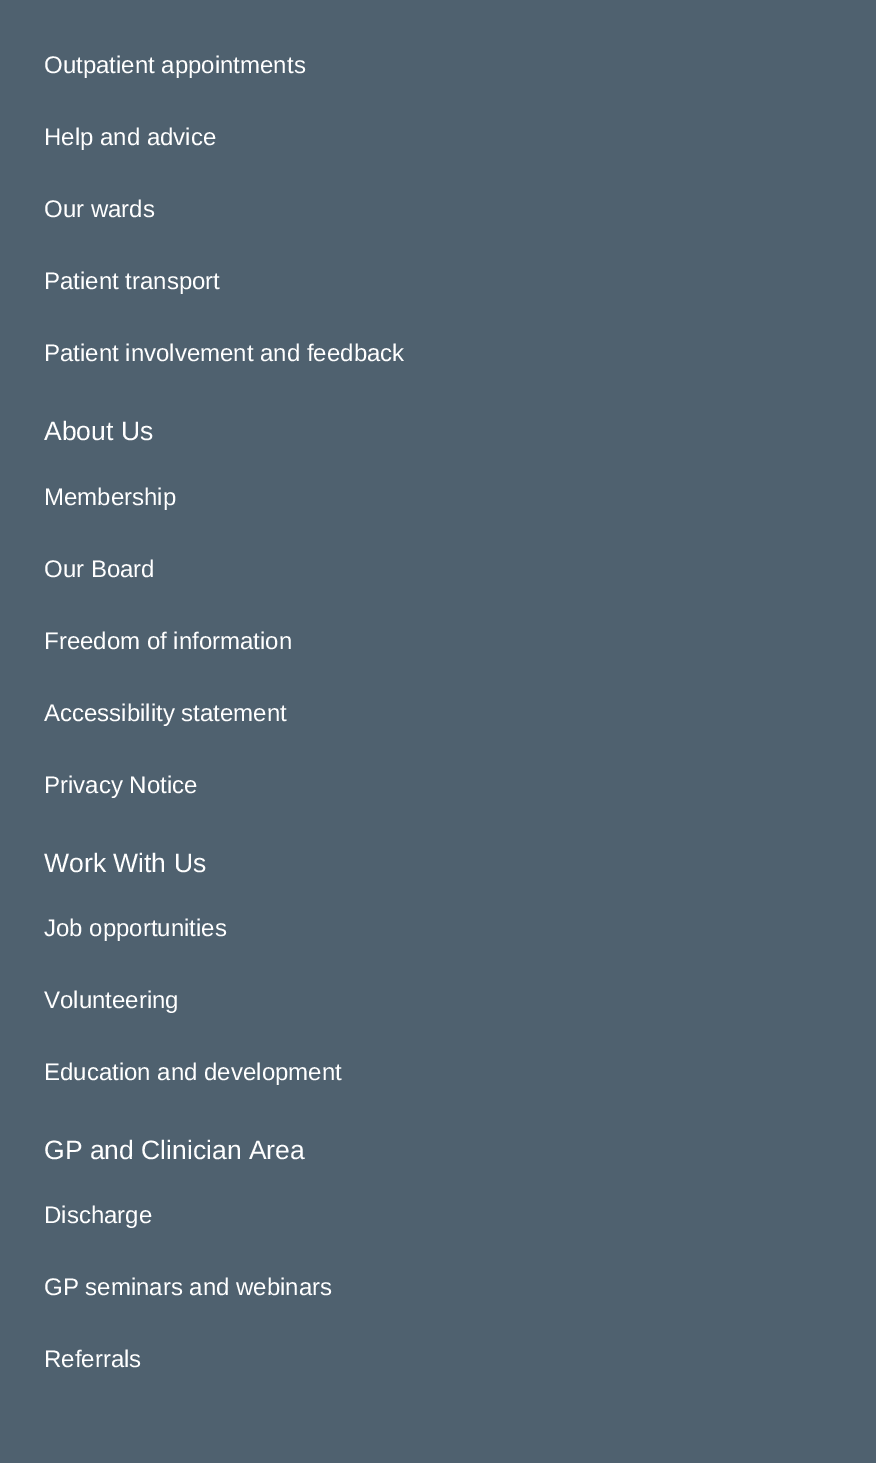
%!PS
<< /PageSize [876 1463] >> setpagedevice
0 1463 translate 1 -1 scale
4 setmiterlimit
0.31 0.38 0.435 setrgbcolor
0 0 876 1463 rectfill
/LiberationSans-Regular [24 0 0 -24 0 0] selectfont
1 setgray
44 73 moveto (Outpatient appointments) show
44 145 moveto (Help and advice) show
44 217 moveto (Our wards) show
44 289 moveto (Patient transport) show
44 361 moveto (Patient involvement and feedback) show
/LiberationSans-Regular [26.5 0 0 -26.5 0 0] selectfont
44 440 moveto (About Us) show
/LiberationSans-Regular [24 0 0 -24 0 0] selectfont
44 505 moveto (Membership) show
44 577 moveto (Our Board) show
44 649 moveto (Freedom of information) show
44 721 moveto (Accessibility statement) show
44 793 moveto (Privacy Notice) show
/LiberationSans-Regular [26.5 0 0 -26.5 0 0] selectfont
44 872 moveto (Work With Us) show
/LiberationSans-Regular [24 0 0 -24 0 0] selectfont
44 936 moveto (Job opportunities) show
44 1008 moveto (Volunteering) show
44 1080 moveto (Education and development) show
/LiberationSans-Regular [26.5 0 0 -26.5 0 0] selectfont
44 1159 moveto (GP and Clinician Area) show
/LiberationSans-Regular [24 0 0 -24 0 0] selectfont
44 1223 moveto (Discharge) show
44 1295 moveto (GP seminars and webinars) show
44 1367 moveto (Referrals) show
showpage
